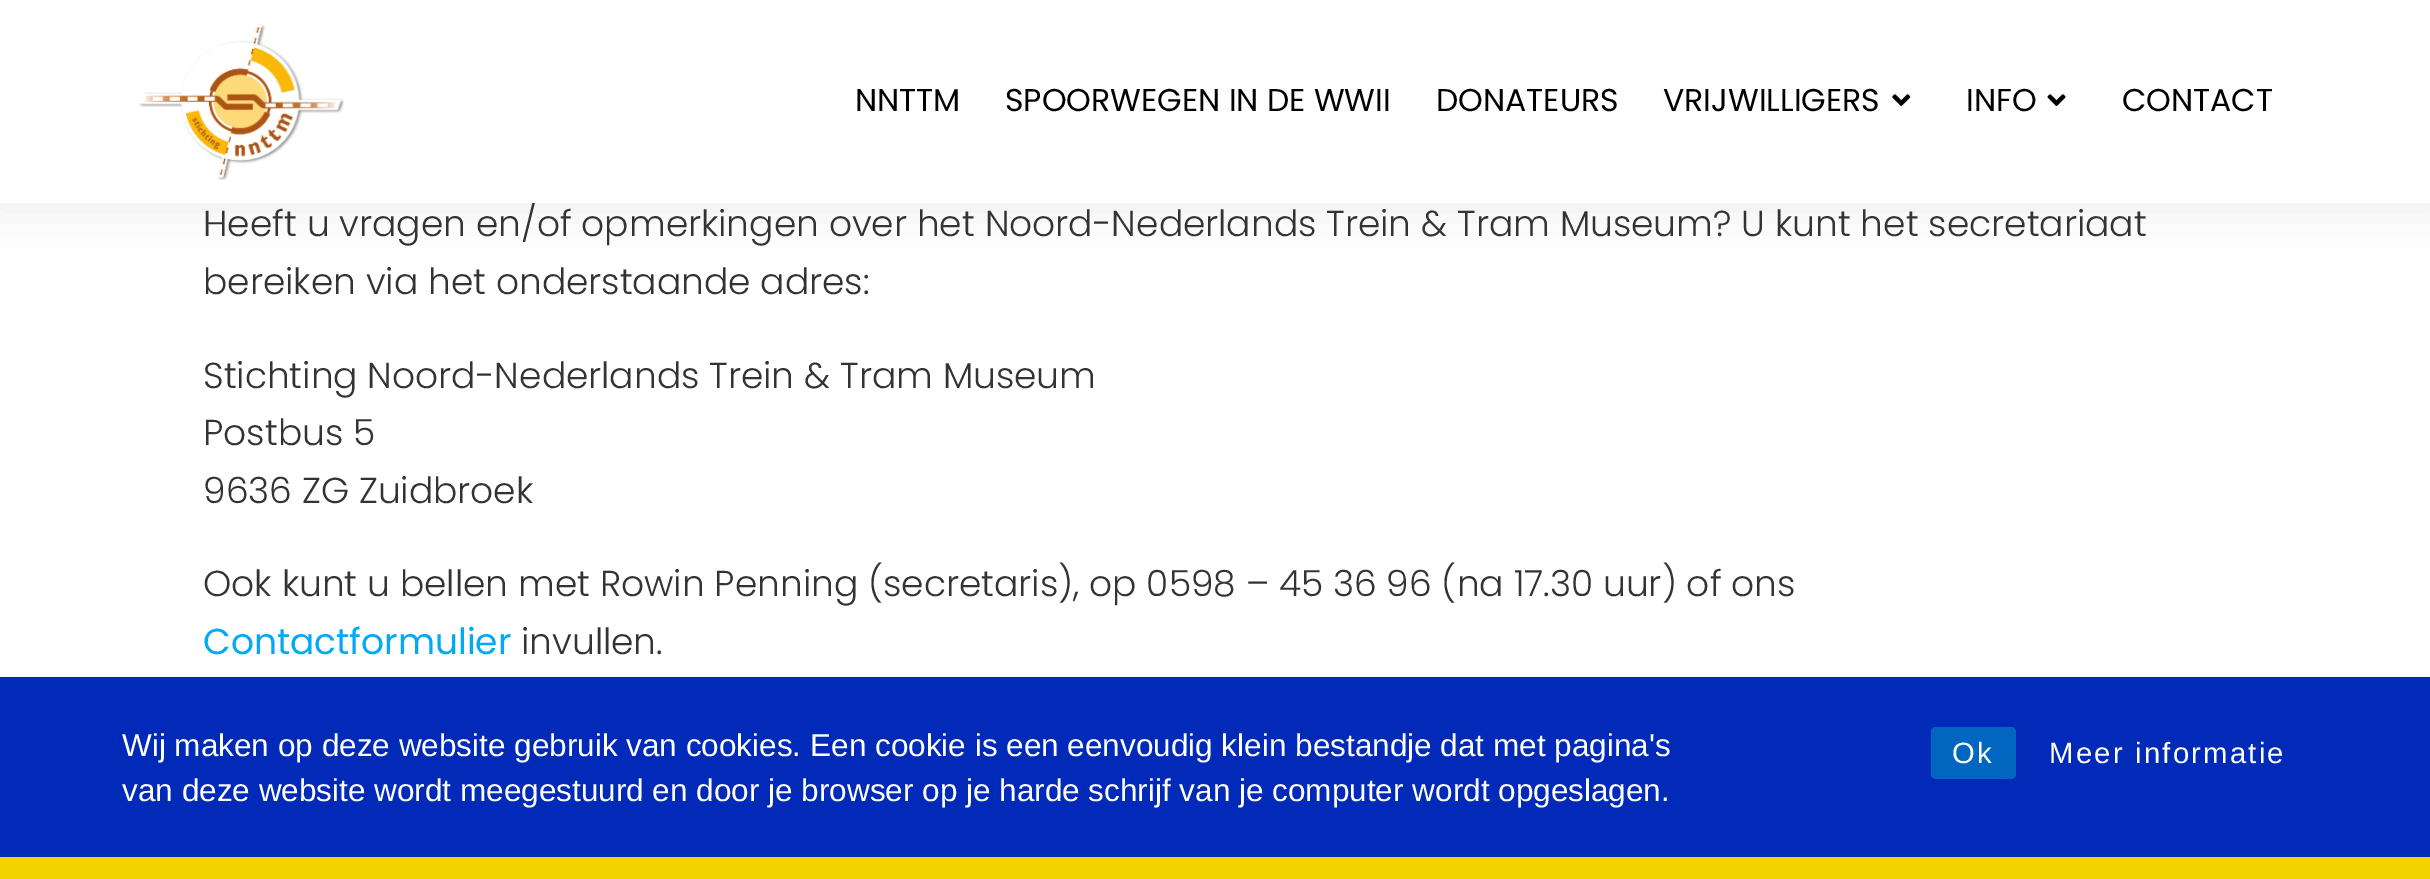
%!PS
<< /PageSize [2430 879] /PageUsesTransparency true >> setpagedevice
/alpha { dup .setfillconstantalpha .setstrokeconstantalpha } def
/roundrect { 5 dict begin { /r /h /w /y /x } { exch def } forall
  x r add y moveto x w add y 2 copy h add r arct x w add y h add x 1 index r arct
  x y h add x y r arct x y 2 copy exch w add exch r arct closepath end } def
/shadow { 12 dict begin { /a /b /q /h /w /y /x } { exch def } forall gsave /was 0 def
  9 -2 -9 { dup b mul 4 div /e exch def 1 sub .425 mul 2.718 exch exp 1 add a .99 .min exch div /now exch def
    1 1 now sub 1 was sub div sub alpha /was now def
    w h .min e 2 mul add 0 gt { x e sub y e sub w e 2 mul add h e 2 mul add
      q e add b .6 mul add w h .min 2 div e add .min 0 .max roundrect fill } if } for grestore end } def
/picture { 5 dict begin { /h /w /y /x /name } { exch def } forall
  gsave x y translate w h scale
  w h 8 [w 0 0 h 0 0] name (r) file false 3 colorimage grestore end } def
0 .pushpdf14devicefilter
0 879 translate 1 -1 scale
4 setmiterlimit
1 setgray
0 0 2430 879 rectfill
0.122 0.133 0.145 setrgbcolor
-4 -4 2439 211 0 22.5 0.1 shadow
/Poppins-Light [36 0 0 -36 0 0] selectfont
0.2 setgray
203 236 moveto (Heeft u vragen en/of opmerkingen over het Noord-Nederlands Trein & Tram Museum? U kunt het secretariaat) show
1 setgray
0 0 2430 203 rectfill
(img1.rgb) 138 24 206 156 picture
/Poppins-Regular [31.5 0 0 -31.5 0 0] selectfont
0 setgray
855 111 moveto (NNTTM) show
1005 111 moveto (SPOORWEGEN IN DE WWII) show
1436 111 moveto (DONATEURS) show
1663 111 moveto (VRIJWILLIGERS) show
(img2.rgb) 1892 94 19 12 picture
1966 111 moveto (INFO) show
(img3.rgb) 2047 94 19 12 picture
2122 111 moveto (CONTACT) show
/Poppins-Light [36 0 0 -36 0 0] selectfont
0.2 setgray
203 294 moveto (bereiken via het onderstaande adres:) show
203 388 moveto (Stichting Noord-Nederlands Trein & Tram Museum) show
203 445 moveto (Postbus 5) show
203 503 moveto (9636 ZG Zuidbroek) show
203 596 moveto (Ook kunt u bellen met Rowin Penning \(secretaris\), op 0598 – 45 36 96 \(na 17.30 uur\) of ons) show
/Poppins-Regular [36 0 0 -36 0 0] selectfont
0.012 0.663 0.957 setrgbcolor
203 654 moveto (Contactformulier) show
/Poppins-Light [36 0 0 -36 0 0] selectfont
0.2 setgray
521 654 moveto (invullen.) show
0 0.165 0.718 setrgbcolor
0 677 2430 180 rectfill
0.957 0.831 0 setrgbcolor
0 857 2430 22 rectfill
/LiberationSans-Regular [31.5 0 0 -31.5 0 0] selectfont
1 setgray
122 756 moveto (Wij maken op deze website gebruik van cookies. Een cookie is een eenvoudig klein bestandje dat met pagina's) show
122 801 moveto (van deze website wordt meegestuurd en door je browser op je harde schrijf van je computer wordt opgeslagen.) show
0 0.4 0.749 setrgbcolor
1931 727 85 52 5 roundrect fill
/LiberationSans-Regular [29.25 0 0 -29.25 0 0] selectfont
1 setgray
1952 763 moveto 2.25 0 (Ok) ashow
2049 763 moveto 2.25 0 (Meer informatie) ashow
.poppdf14devicefilter showpage
